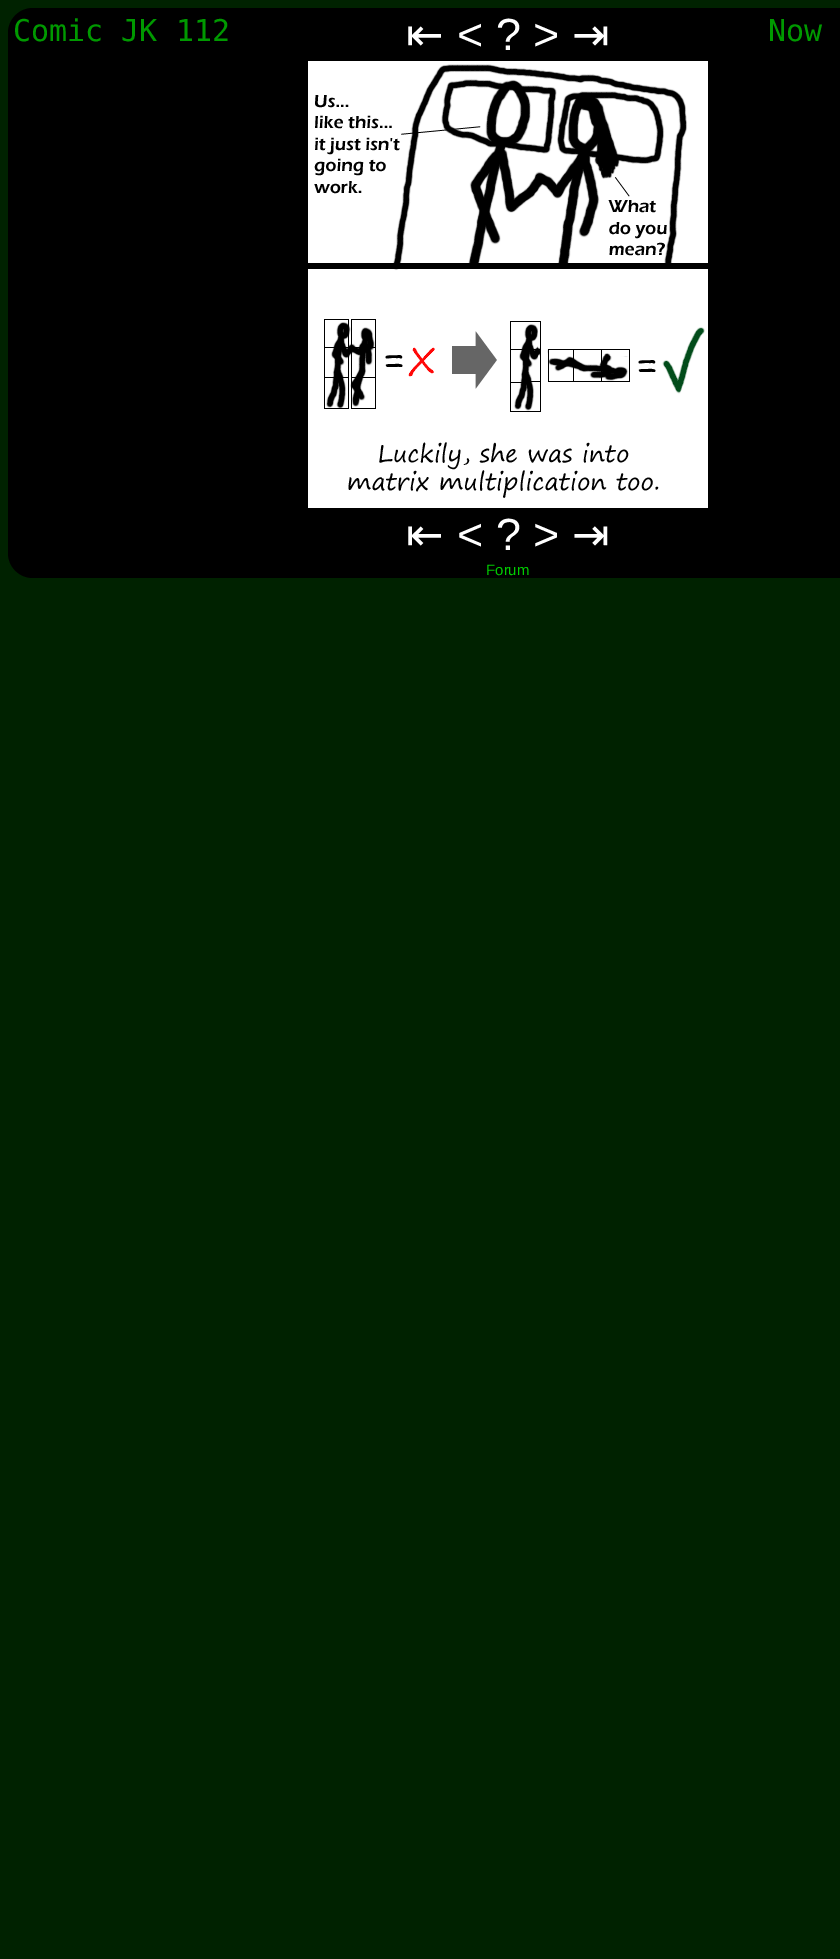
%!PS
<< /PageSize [840 1959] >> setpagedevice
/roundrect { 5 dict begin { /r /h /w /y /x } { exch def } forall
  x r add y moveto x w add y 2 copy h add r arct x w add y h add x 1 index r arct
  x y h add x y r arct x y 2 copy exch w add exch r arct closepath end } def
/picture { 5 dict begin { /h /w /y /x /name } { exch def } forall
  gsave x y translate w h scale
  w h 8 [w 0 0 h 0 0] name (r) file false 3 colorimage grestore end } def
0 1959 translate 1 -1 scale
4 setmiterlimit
0 0.133 0 setrgbcolor
0 0 840 1959 rectfill
0 setgray
8 8 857 570 25 roundrect fill
/DejaVuSansMono-Regular [30 0 0 -30 0 0] selectfont
0 0.6 0 setrgbcolor
13 41 moveto (Comic JK 112) show
/DejaVuSans-Regular [45 0 0 -45 0 0] selectfont
1 setgray
406 50 moveto (⇤) show
/LiberationSans-Regular [45 0 0 -45 0 0] selectfont
457 50 moveto (< ? >) show
/DejaVuSans-Regular [45 0 0 -45 0 0] selectfont
572 50 moveto (⇥) show
/DejaVuSansMono-Regular [30 0 0 -30 0 0] selectfont
0 0.6 0 setrgbcolor
768 41 moveto (Now) show
(img1.rgb) 308 61 400 447 picture
/DejaVuSans-Regular [45 0 0 -45 0 0] selectfont
1 setgray
406 550 moveto (⇤) show
/LiberationSans-Regular [45 0 0 -45 0 0] selectfont
457 550 moveto (< ? >) show
/DejaVuSans-Regular [45 0 0 -45 0 0] selectfont
572 550 moveto (⇥) show
/LiberationSans-Regular [15 0 0 -15 0 0] selectfont
0 0.8 0 setrgbcolor
486 575 moveto (Forum) show
showpage
